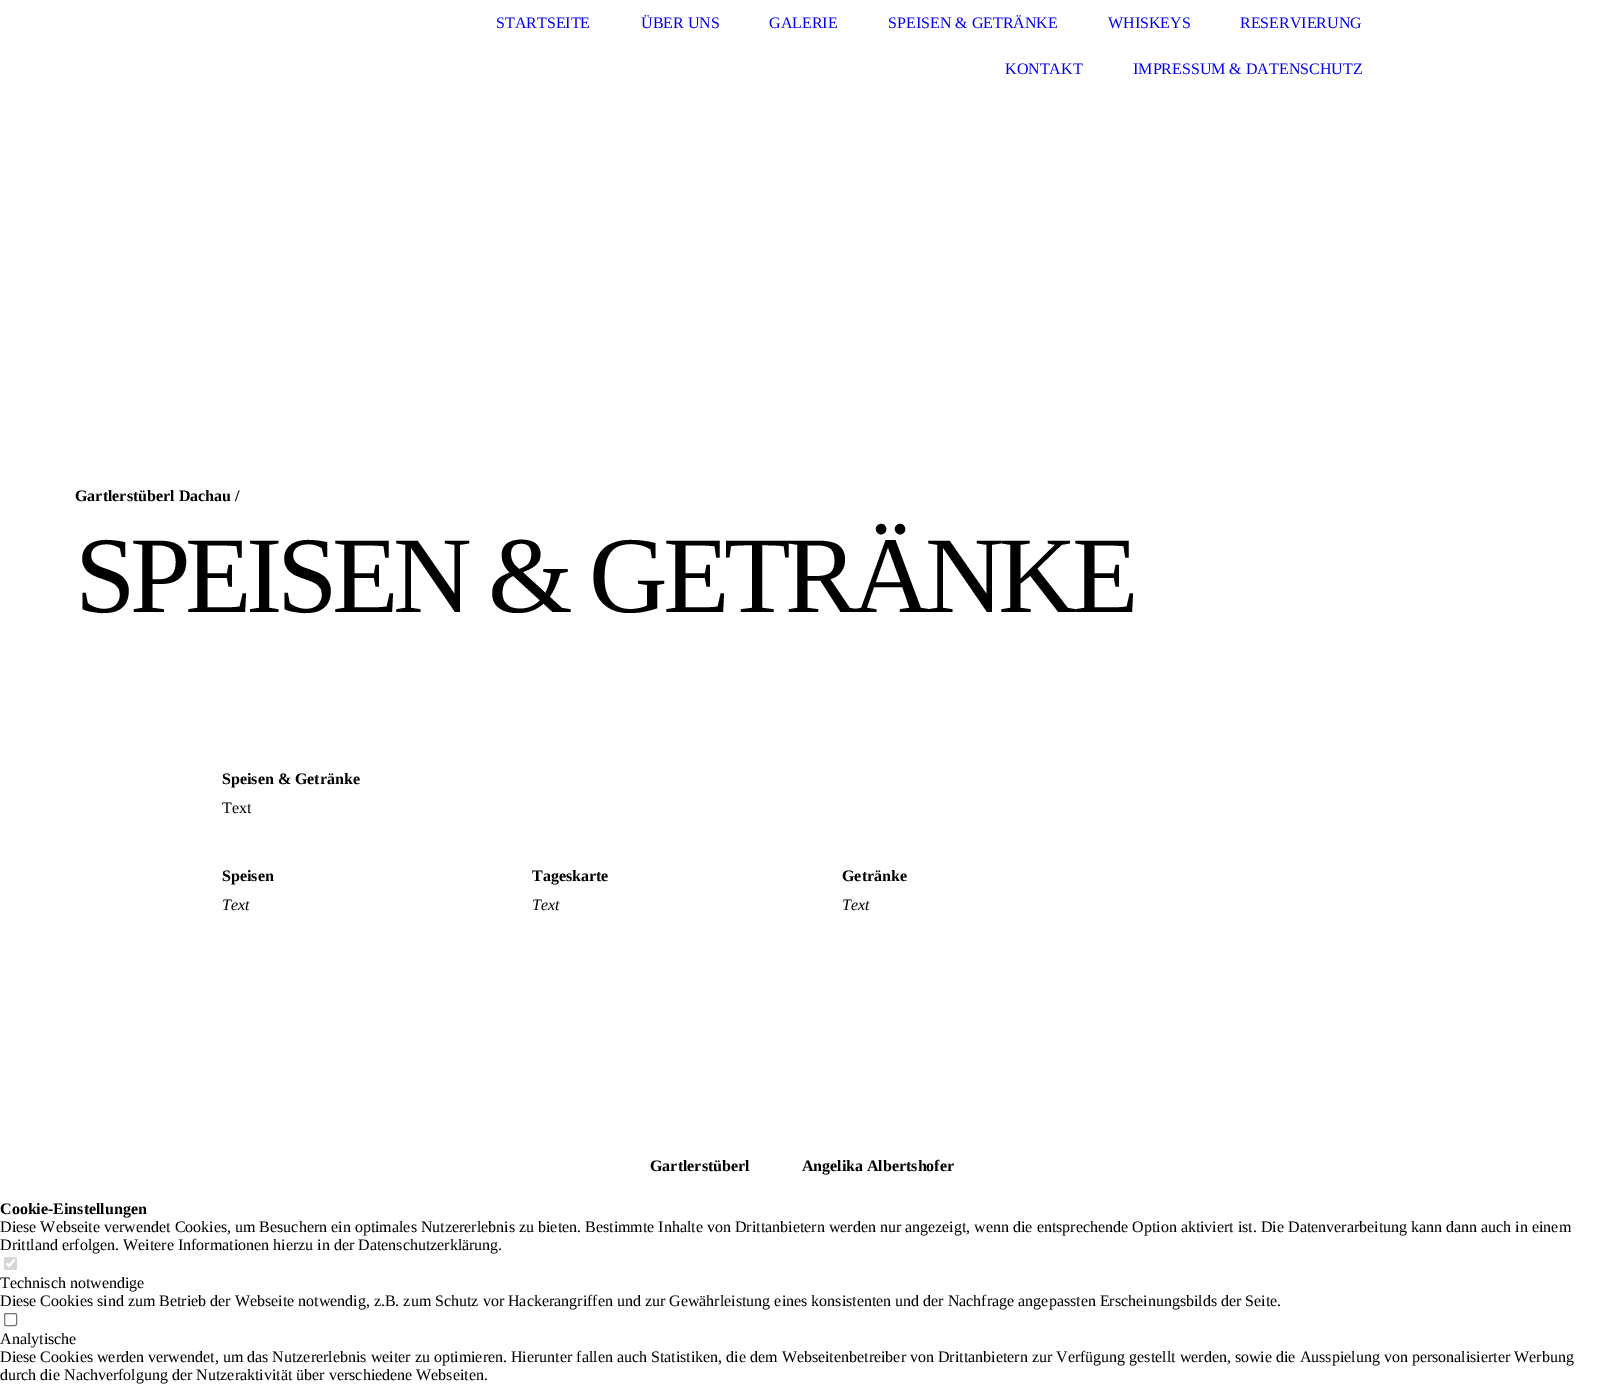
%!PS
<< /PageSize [1604 1387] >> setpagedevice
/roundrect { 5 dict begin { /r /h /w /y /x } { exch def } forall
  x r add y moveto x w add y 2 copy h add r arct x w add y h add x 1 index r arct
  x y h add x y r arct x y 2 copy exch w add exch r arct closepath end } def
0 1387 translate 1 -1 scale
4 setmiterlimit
1 setgray
0 0 1604 1387 rectfill
/LiberationSerif-Regular [16 0 0 -16 0 0] selectfont
0 0 0.933 setrgbcolor
496 28 moveto (STARTSEITE) show
641 28 moveto (ÜBER UNS) show
769 28 moveto (GALERIE) show
888 28 moveto (SPEISEN & GETRÄNKE) show
1108 28 moveto (WHISKEYS) show
1240 28 moveto (RESERVIERUNG) show
1005 74 moveto (KONTAKT) show
1133 74 moveto (IMPRESSUM & DATENSCHUTZ) show
/LiberationSerif-Bold [16 0 0 -16 0 0] selectfont
0 setgray
75 501 moveto (Gartlerstüberl Dachau /) show
/LiberationSerif-Regular [109 0 0 -109 0 0] selectfont
75 612 moveto -5.5 0 (SPEISEN & GETRÄNKE) ashow
/LiberationSerif-Bold [16 0 0 -16 0 0] selectfont
222 784 moveto (Speisen & Getränke) show
/LiberationSerif-Regular [16 0 0 -16 0 0] selectfont
222 813 moveto (Text) show
/LiberationSerif-Bold [16 0 0 -16 0 0] selectfont
222 881 moveto (Speisen) show
/LiberationSerif-Italic [16 0 0 -16 0 0] selectfont
222 910 moveto (Text) show
/LiberationSerif-Bold [16 0 0 -16 0 0] selectfont
532 881 moveto (Tageskarte) show
/LiberationSerif-Italic [16 0 0 -16 0 0] selectfont
532 910 moveto (Text) show
/LiberationSerif-Bold [16 0 0 -16 0 0] selectfont
842 881 moveto (Getränke) show
/LiberationSerif-Italic [16 0 0 -16 0 0] selectfont
842 910 moveto (Text) show
/LiberationSerif-Bold [16 0 0 -16 0 0] selectfont
650 1171 moveto (Gartlerstüberl             Angelika Albertshofer) show
0 1214 moveto (Cookie-Einstellungen) show
/LiberationSerif-Regular [16 0 0 -16 0 0] selectfont
0 1232 moveto (Diese Webseite verwendet Cookies, um Besuchern ein optimales Nutzererlebnis zu bieten. Bestimmte Inhalte von Drittanbietern werden nur angezeigt, wenn die entsprechende Option aktiviert ist. Die Datenverarbeitung kann dann auch in einem) show
0 1250 moveto (Drittland erfolgen. Weitere Informationen hierzu in der Datenschutzerklärung.) show
0.839 setgray
4 1257 13 13 2 roundrect fill
1 setgray
2.1 setlinewidth
newpath 6.5 1263.5 moveto 9 1266 lineto 14.5 1259.5 lineto stroke
0 setgray
0 1288 moveto (Technisch notwendige) show
0 1306 moveto (Diese Cookies sind zum Betrieb der Webseite notwendig, z.B. zum Schutz vor Hackerangriffen und zur Gewährleistung eines konsistenten und der Nachfrage angepassten Erscheinungsbilds der Seite.) show
0.463 setgray
1 setlinewidth
4.5 1313.5 12 12 1.5 roundrect stroke
0 setgray
0 1344 moveto (Analytische) show
0 1362 moveto (Diese Cookies werden verwendet, um das Nutzererlebnis weiter zu optimieren. Hierunter fallen auch Statistiken, die dem Webseitenbetreiber von Drittanbietern zur Verfügung gestellt werden, sowie die Ausspielung von personalisierter Werbung) show
0 1380 moveto (durch die Nachverfolgung der Nutzeraktivität über verschiedene Webseiten.) show
showpage
